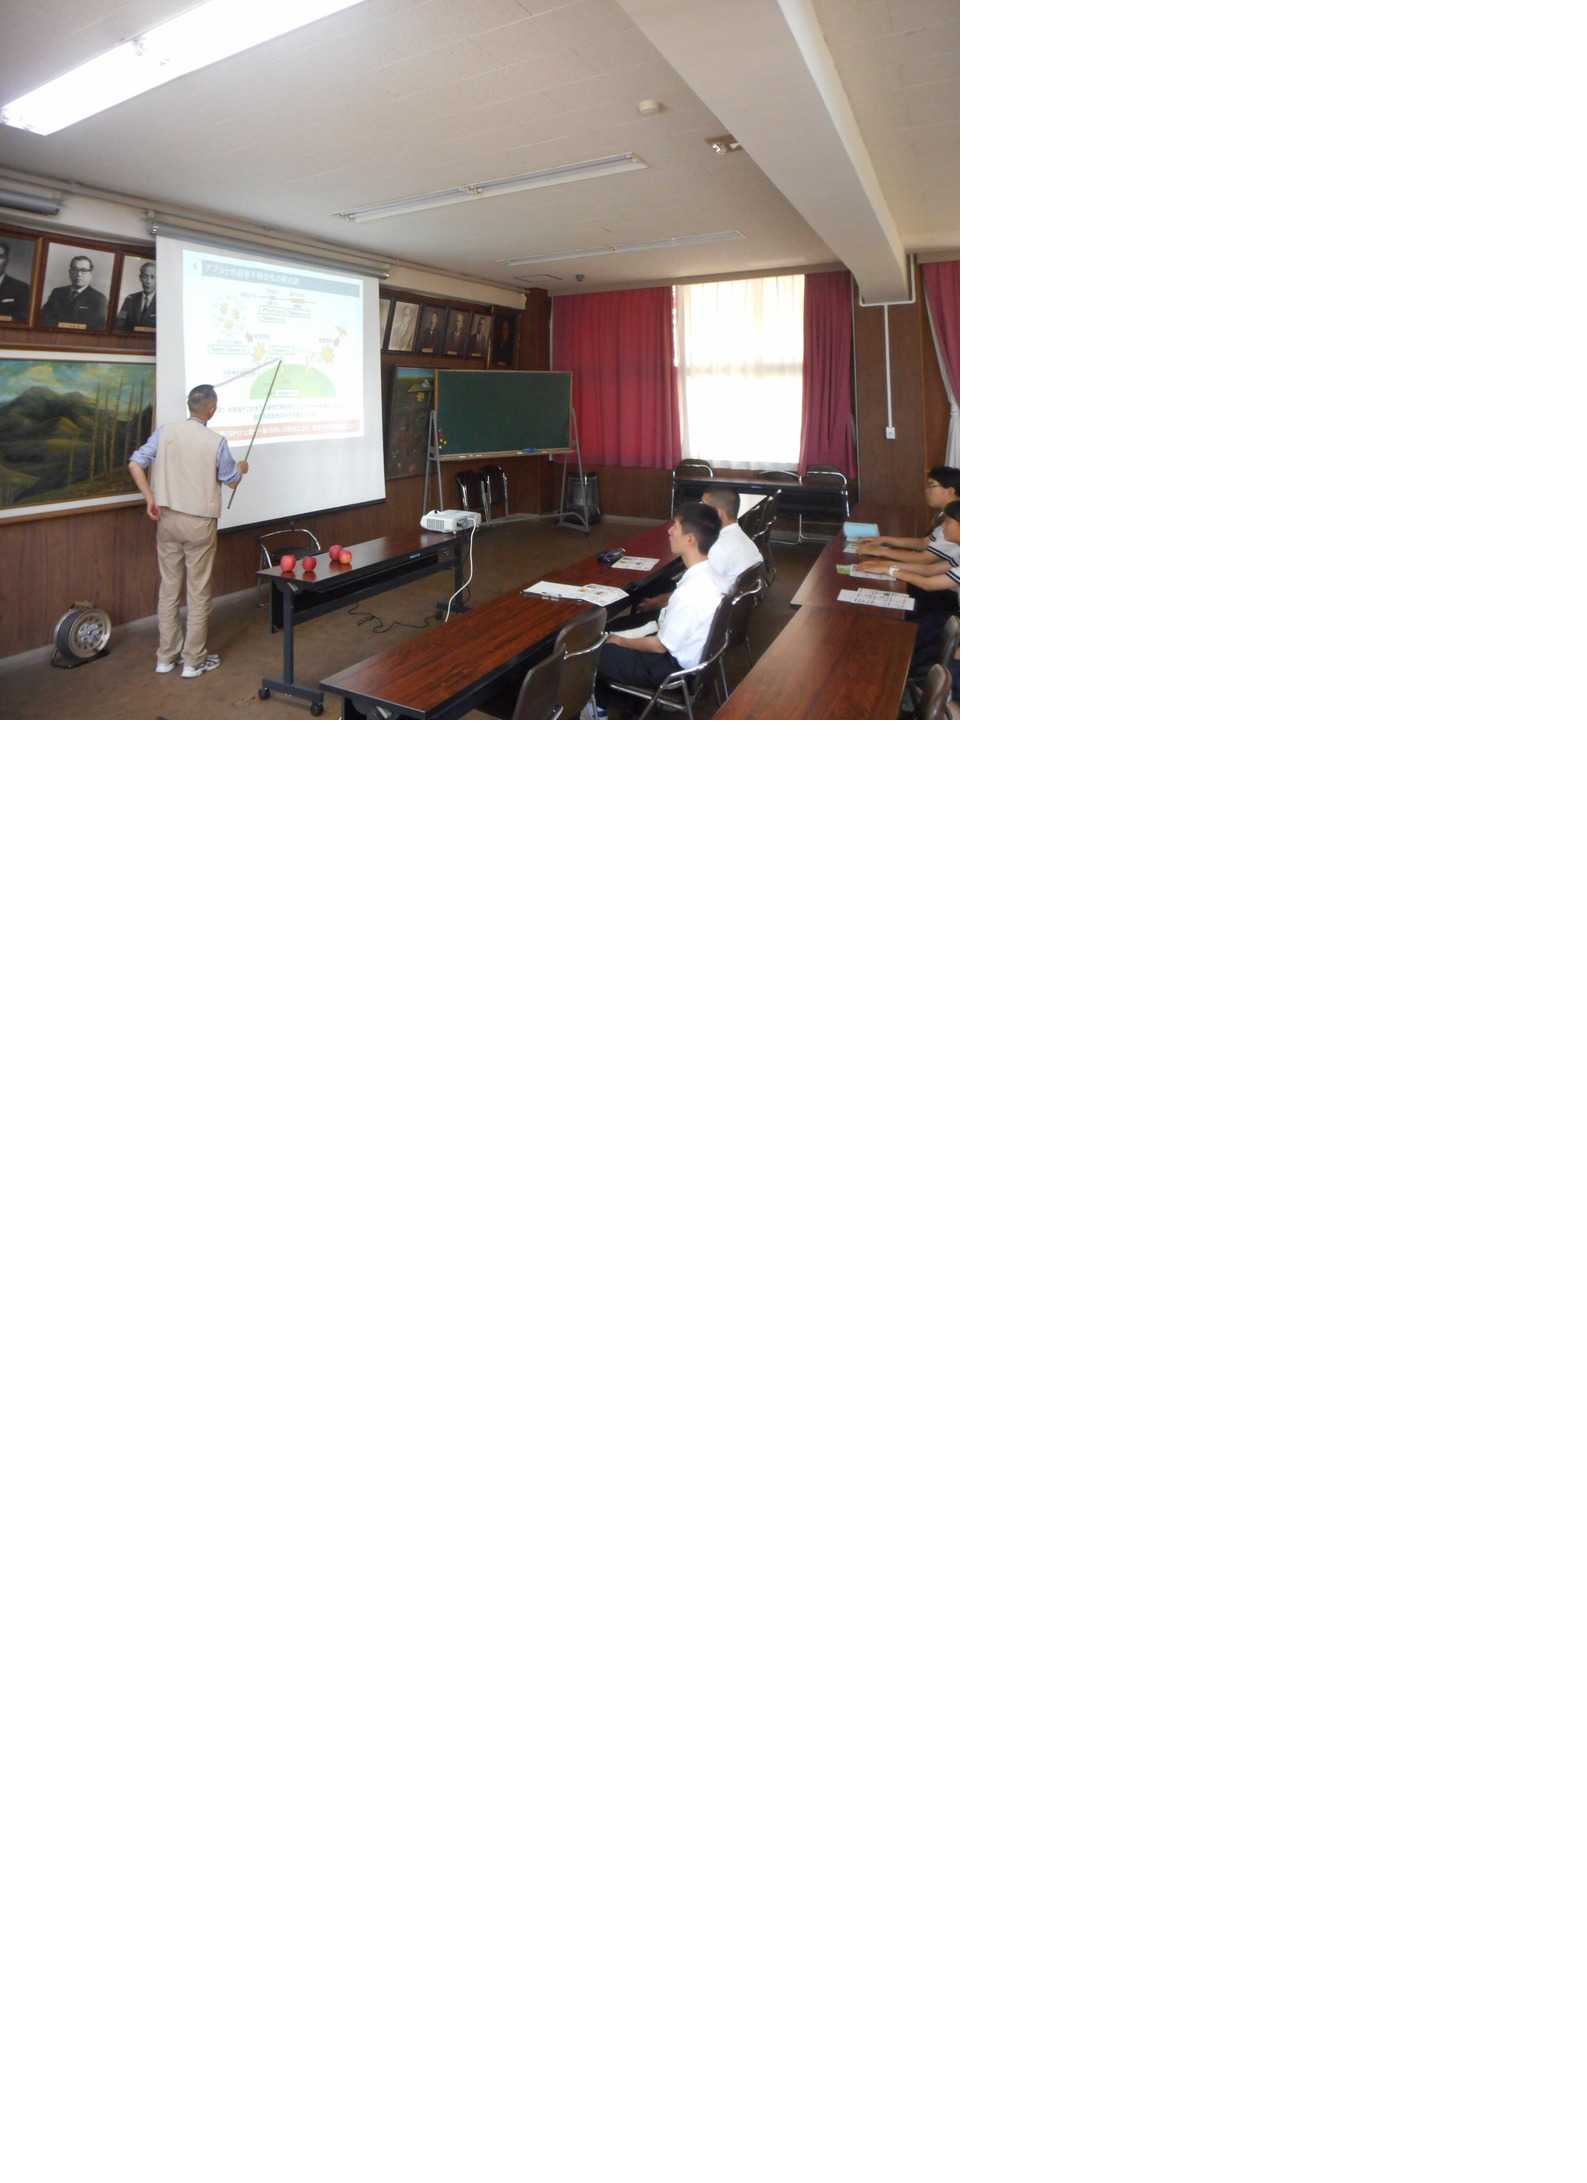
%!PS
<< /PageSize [1587 2183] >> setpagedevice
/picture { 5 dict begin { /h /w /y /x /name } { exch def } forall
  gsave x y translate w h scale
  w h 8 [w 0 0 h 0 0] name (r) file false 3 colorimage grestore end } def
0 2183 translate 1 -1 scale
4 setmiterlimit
1 setgray
0 0 1587 2183 rectfill
(img1.rgb) 0 0 960 720 picture
showpage
